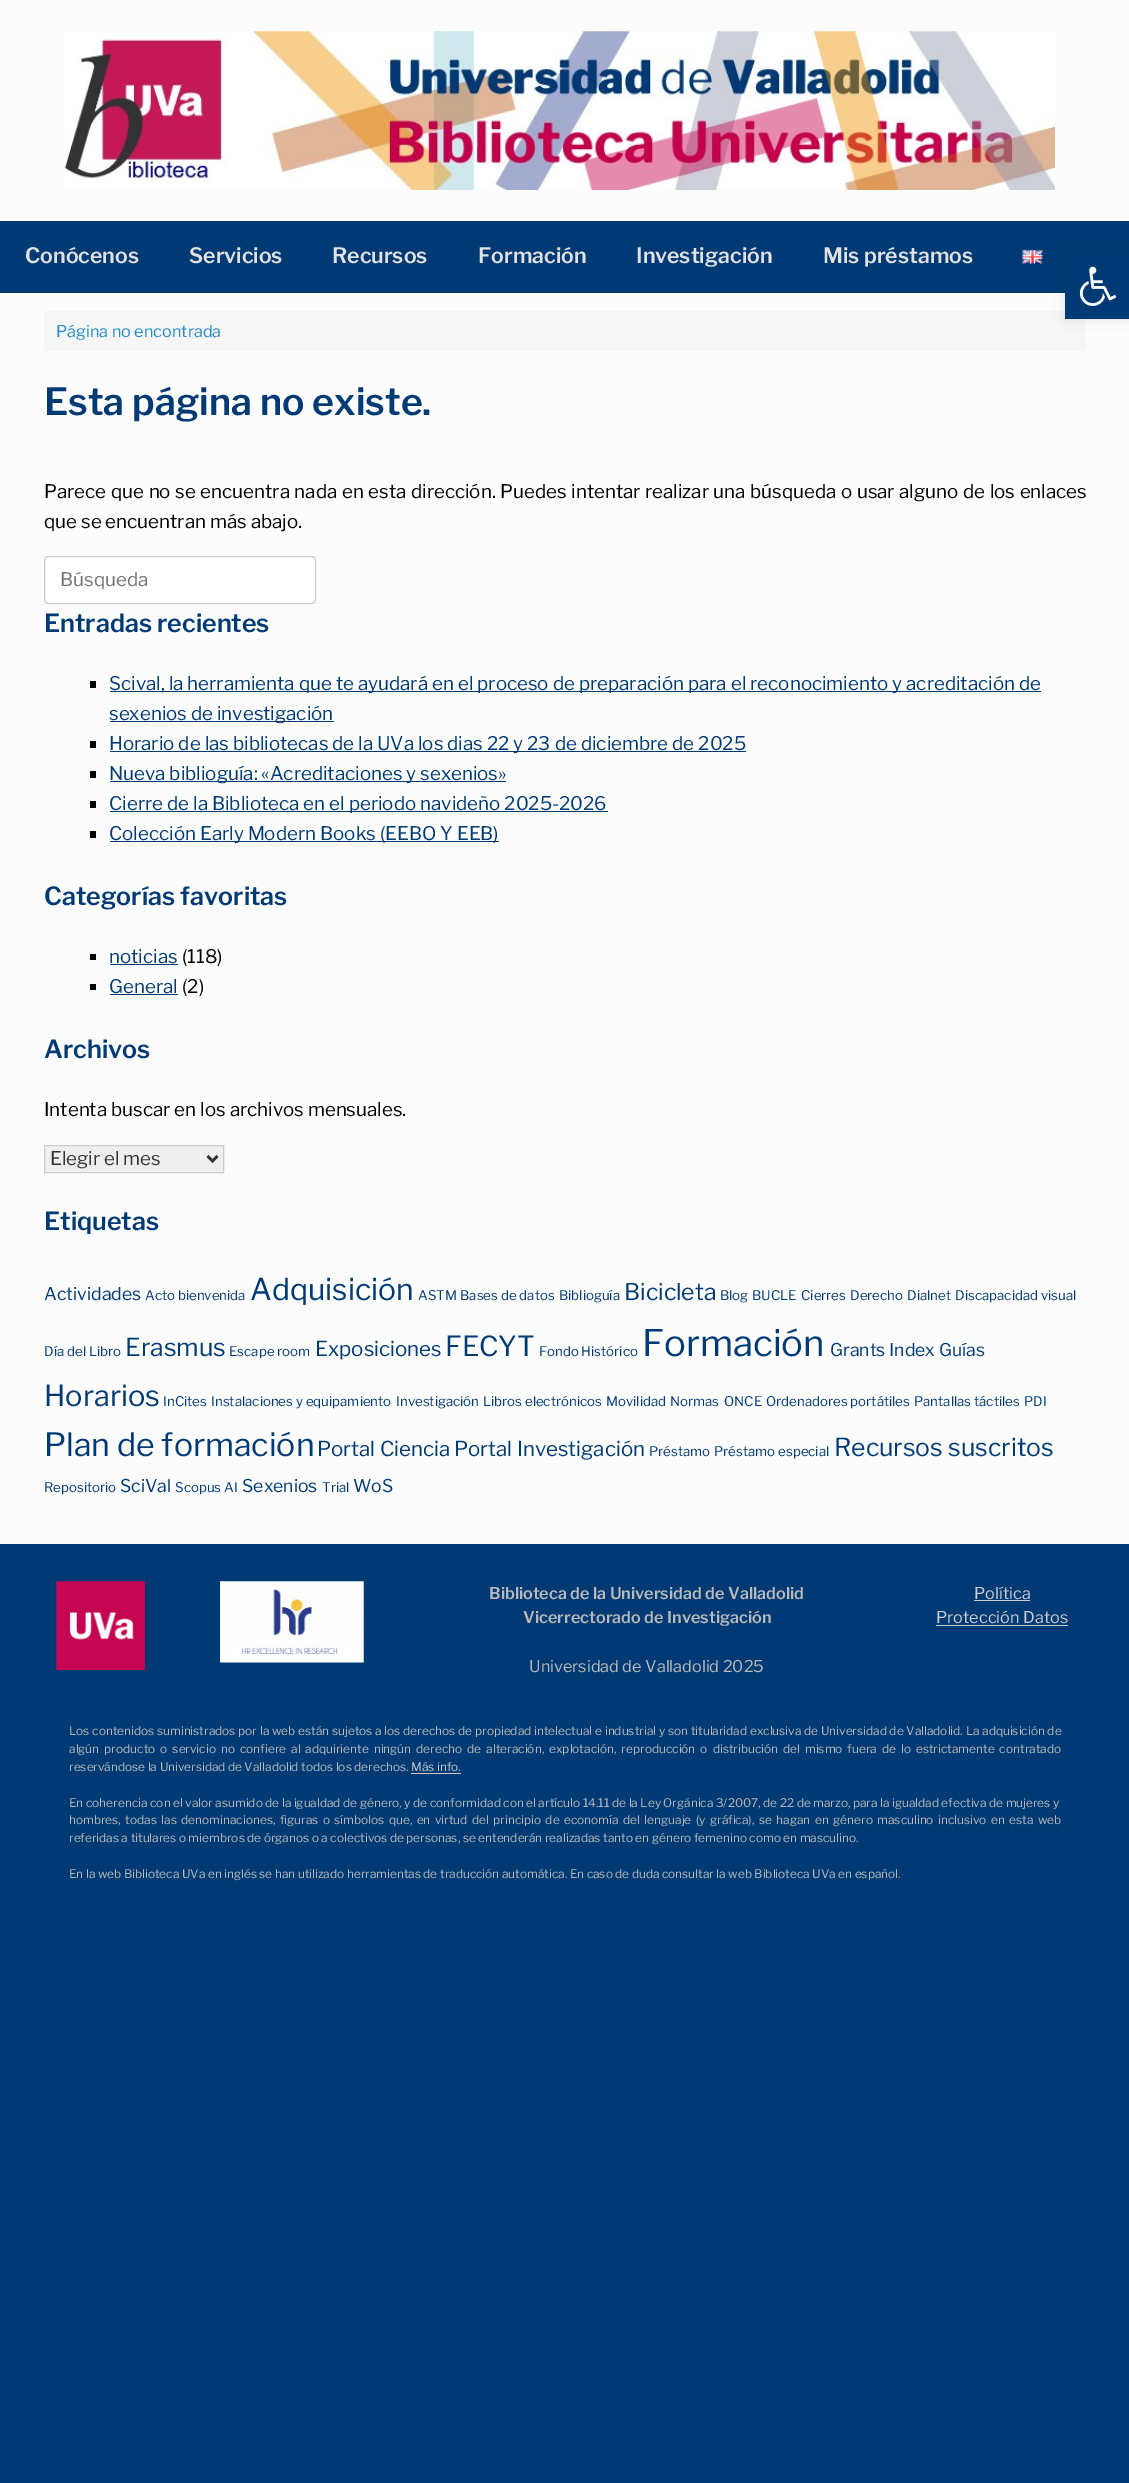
%!PS
<< /PageSize [1129 2483] /PageUsesTransparency true >> setpagedevice
/alpha { dup .setfillconstantalpha .setstrokeconstantalpha } def
/roundrect { 5 dict begin { /r /h /w /y /x } { exch def } forall
  x r add y moveto x w add y 2 copy h add r arct x w add y h add x 1 index r arct
  x y h add x y r arct x y 2 copy exch w add exch r arct closepath end } def
/shadow { 12 dict begin { /a /b /q /h /w /y /x } { exch def } forall gsave /was 0 def
  9 -2 -9 { dup b mul 4 div /e exch def 1 sub .425 mul 2.718 exch exp 1 add a .99 .min exch div /now exch def
    1 1 now sub 1 was sub div sub alpha /was now def
    w h .min e 2 mul add 0 gt { x e sub y e sub w e 2 mul add h e 2 mul add
      q e add b .6 mul add w h .min 2 div e add .min 0 .max roundrect fill } if } for grestore end } def
/picture { 5 dict begin { /h /w /y /x /name } { exch def } forall
  gsave x y translate w h scale
  w h 8 [w 0 0 h 0 0] name (r) file false 3 colorimage grestore end } def
0 .pushpdf14devicefilter
0 2483 translate 1 -1 scale
4 setmiterlimit
0 0.227 0.455 setrgbcolor
0 0 1129 2483 rectfill
0.988 setgray
0 0 1129 221 rectfill
(img1.rgb) 64 31 991 159 picture
/LibreFranklin-SemiBold [21.25 0 0 -21.25 0 0] selectfont
0.886 setgray
25 263 moveto (Conócenos) show
189 263 moveto (Servicios) show
332 263 moveto (Recursos) show
478 263 moveto (Formación) show
636 263 moveto (Investigación) show
823 263 moveto (Mis préstamos) show
(img2.rgb) 1022 250 21 14 picture
0.988 setgray
0 293 1129 1251 rectfill
0.965 setgray
44 311 1042 40 rectfill
/LibreFranklin-Regular [16.25 0 0 -16.25 0 0] selectfont
0.141 0.549 0.784 setrgbcolor
56 337 moveto (Página no encontrada) show
/LibreFranklin-SemiBold [37.5 0 0 -37.5 0 0] selectfont
0 0.227 0.455 setrgbcolor
44 415 moveto (Esta página no existe.) show
/LibreFranklin-Regular [18.75 0 0 -18.75 0 0] selectfont
0 setgray
44 498 moveto 0.6 0 32 (Parece que no se encuentra nada en esta dirección. Puedes intentar realizar una búsqueda o usar alguno de los enlaces) widthshow
44 528 moveto (que se encuentran más abajo.) show
1 setgray
44.5 556.5 271 47 3.5 roundrect gsave fill grestore
0.8 setgray
stroke
0.459 setgray
60 586 moveto (Búsqueda) show
/LibreFranklin-SemiBold [25 0 0 -25 0 0] selectfont
0 0.227 0.455 setrgbcolor
44 632 moveto (Entradas recientes) show
0 setgray
90 681 6 7 rectfill
0 0.227 0.455 setrgbcolor
110 691 931 1 rectfill
/LibreFranklin-Regular [18.75 0 0 -18.75 0 0] selectfont
109 690 moveto (Scival, la herramienta que te ayudará en el proceso de preparación para el reconocimiento y acreditación de) show
110 721 224 1 rectfill
109 720 moveto (sexenios de investigación) show
0 setgray
90 741 6 7 rectfill
0 0.227 0.455 setrgbcolor
110 751 636 1 rectfill
109 750 moveto (Horario de las bibliotecas de la UVa los dias 22 y 23 de diciembre de 2025) show
0 setgray
90 771 6 7 rectfill
0 0.227 0.455 setrgbcolor
110 781 396 1 rectfill
109 780 moveto (Nueva biblioguía: «Acreditaciones y sexenios») show
0 setgray
90 801 6 7 rectfill
0 0.227 0.455 setrgbcolor
110 811 498 1 rectfill
109 810 moveto (Cierre de la Biblioteca en el periodo navideño 2025-2026) show
0 setgray
90 831 6 7 rectfill
0 0.227 0.455 setrgbcolor
110 841 389 1 rectfill
109 840 moveto (Colección Early Modern Books \(EEBO Y EEB\)) show
/LibreFranklin-SemiBold [25 0 0 -25 0 0] selectfont
44 905 moveto (Categorías favoritas) show
0 setgray
90 954 6 6 rectfill
/LibreFranklin-Regular [18.75 0 0 -18.75 0 0] selectfont
0 0.227 0.455 setrgbcolor
109 963 moveto (noticias) show
110 964 68 1 rectfill
0 setgray
182 963 moveto (\(118\)) show
90 984 6 6 rectfill
0 0.227 0.455 setrgbcolor
109 993 moveto (General) show
110 994 68 1 rectfill
0 setgray
182 993 moveto (\(2\)) show
/LibreFranklin-SemiBold [25 0 0 -25 0 0] selectfont
0 0.227 0.455 setrgbcolor
44 1058 moveto (Archivos) show
/LibreFranklin-Regular [18.75 0 0 -18.75 0 0] selectfont
0 setgray
44 1116 moveto (Intenta buscar en los archivos mensuales.) show
0.937 setgray
newpath 44.5 1145.5 moveto 223.5 1145.5 lineto 223.5 1172.5 lineto 44.5 1172.5 lineto closepath gsave fill grestore
0.8 setgray
stroke
0.2 setgray
2.5 setlinewidth
newpath 207.5 1156 moveto 212.5 1161 lineto 217.5 1156 lineto stroke
50 1165 moveto (Elegir el mes) show
/LibreFranklin-SemiBold [25 0 0 -25 0 0] selectfont
0 0.227 0.455 setrgbcolor
44 1230 moveto (Etiquetas) show
/LibreFranklin-Regular [17.6 0 0 -17.6 0 0] selectfont
44 1300 moveto (Actividades) show
/LibreFranklin-Regular [13.3 0 0 -13.3 0 0] selectfont
145 1300 moveto (Acto bienvenida) show
/LibreFranklin-Regular [30 0 0 -30 0 0] selectfont
250 1300 moveto (Adquisición) show
/LibreFranklin-Regular [13.3 0 0 -13.3 0 0] selectfont
418 1300 moveto (ASTM) show
460 1300 moveto (Bases de datos) show
559 1300 moveto (Biblioguía) show
/LibreFranklin-Regular [23 0 0 -23 0 0] selectfont
624 1300 moveto (Bicicleta) show
/LibreFranklin-Regular [13.3 0 0 -13.3 0 0] selectfont
720 1300 moveto (Blog) show
752 1300 moveto (BUCLE) show
801 1300 moveto (Cierres) show
850 1300 moveto (Derecho) show
907 1300 moveto (Dialnet) show
955 1300 moveto (Discapacidad visual) show
44 1356 moveto (Día del Libro) show
/LibreFranklin-Regular [24.75 0 0 -24.75 0 0] selectfont
125 1356 moveto (Erasmus) show
/LibreFranklin-Regular [13.3 0 0 -13.3 0 0] selectfont
229 1356 moveto (Escape room) show
/LibreFranklin-Regular [20.5 0 0 -20.5 0 0] selectfont
315 1356 moveto (Exposiciones) show
/LibreFranklin-Regular [27.5 0 0 -27.5 0 0] selectfont
445 1356 moveto (FECYT) show
/LibreFranklin-Regular [13.3 0 0 -13.3 0 0] selectfont
539 1356 moveto (Fondo Histórico) show
/LibreFranklin-Regular [36.5 0 0 -36.5 0 0] selectfont
642 1356 moveto (Formación) show
/LibreFranklin-Regular [17.6 0 0 -17.6 0 0] selectfont
830 1356 moveto (Grants Index Guías) show
/LibreFranklin-Regular [29 0 0 -29 0 0] selectfont
44 1406 moveto (Horarios) show
/LibreFranklin-Regular [13.3 0 0 -13.3 0 0] selectfont
163 1406 moveto (InCites) show
211 1406 moveto (Instalaciones y equipamiento) show
396 1406 moveto (Investigación) show
483 1406 moveto (Libros electrónicos) show
606 1406 moveto (Movilidad) show
670 1406 moveto (Normas) show
724 1406 moveto (ONCE) show
766 1406 moveto (Ordenadores portátiles) show
914 1406 moveto (Pantallas táctiles) show
1024 1406 moveto (PDI) show
/LibreFranklin-Regular [32 0 0 -32 0 0] selectfont
44 1456 moveto (Plan de formación) show
/LibreFranklin-Regular [20.5 0 0 -20.5 0 0] selectfont
317 1456 moveto (Portal Ciencia) show
454 1456 moveto (Portal Investigación) show
/LibreFranklin-Regular [13.3 0 0 -13.3 0 0] selectfont
649 1456 moveto (Préstamo) show
714 1456 moveto (Préstamo especial) show
/LibreFranklin-Regular [24.75 0 0 -24.75 0 0] selectfont
834 1456 moveto (Recursos suscritos) show
/LibreFranklin-Regular [13.3 0 0 -13.3 0 0] selectfont
44 1492 moveto (Repositorio) show
/LibreFranklin-Regular [17.6 0 0 -17.6 0 0] selectfont
120 1492 moveto (SciVal) show
/LibreFranklin-Regular [13.3 0 0 -13.3 0 0] selectfont
175 1492 moveto (Scopus AI) show
/LibreFranklin-Regular [17.6 0 0 -17.6 0 0] selectfont
242 1492 moveto (Sexenios) show
/LibreFranklin-Regular [13.3 0 0 -13.3 0 0] selectfont
322 1492 moveto (Trial) show
/LibreFranklin-Regular [17.6 0 0 -17.6 0 0] selectfont
353 1492 moveto (WoS) show
(img3.rgb) 56 1581 89 89 picture
(img4.rgb) 220 1581 144 82 picture
/LibreFranklin-SemiBold [16.25 0 0 -16.25 0 0] selectfont
0.725 setgray
489 1599 moveto (Biblioteca de la Universidad de Valladolid) show
523 1623 moveto (Vicerrectorado de Investigación) show
/LibreFranklin-Regular [16.25 0 0 -16.25 0 0] selectfont
529 1672 moveto (Universidad de Valladolid 2025) show
0.8 setgray
974 1599 moveto (Política) show
974 1600 56 1 rectfill
936 1623 moveto (Protección Datos) show
936 1625 132 1 rectfill
/LibreFranklin-Regular [11.88 0 0 -11.88 0 0] selectfont
0.725 setgray
69 1735 moveto 0.25 0 32 (Los contenidos suministrados por la web están sujetos a los derechos de propiedad intelectual e industrial y son titularidad exclusiva de Universidad de Valladolid. La adquisición de) widthshow
69 1753 moveto 2.5 0 32 (algún producto o servicio no confiere al adquiriente ningún derecho de alteración, explotación, reproducción o distribución del mismo fuera de lo estrictamente contratado) widthshow
69 1771 moveto (reservándose la Universidad de Valladolid todos los derechos.) show
0.8 setgray
411 1771 moveto (Más info.) show
411 1773 50 1 rectfill
0.725 setgray
69 1807 moveto (En coherencia con el valor asumido de la igualdad de género, y de conformidad con el artículo 14.11 de la Ley Orgánica 3/2007, de 22 de marzo, para la igualdad efectiva de mujeres y) show
69 1824 moveto 1.95 0 32 (hombres, todas las denominaciones, figuras o símbolos que, en virtud del principio de economía del lenguaje \(y gráfica\), se hagan en género masculino inclusivo en esta web) widthshow
69 1842 moveto (referidas a titulares o miembros de órganos o a colectivos de personas, se entenderán realizadas tanto en género femenino como en masculino.) show
69 1878 moveto (En la web Biblioteca UVa en inglés se han utilizado herramientas de traducción automática. En caso de duda consultar la web Biblioteca UVa en español.) show
0 setgray
1065 254 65 65 0 6 0.1 shadow
0 0.227 0.455 setrgbcolor
1065 254 64 65 rectfill
(img5.rgb) 1079 266 38 40 picture
.poppdf14devicefilter showpage
